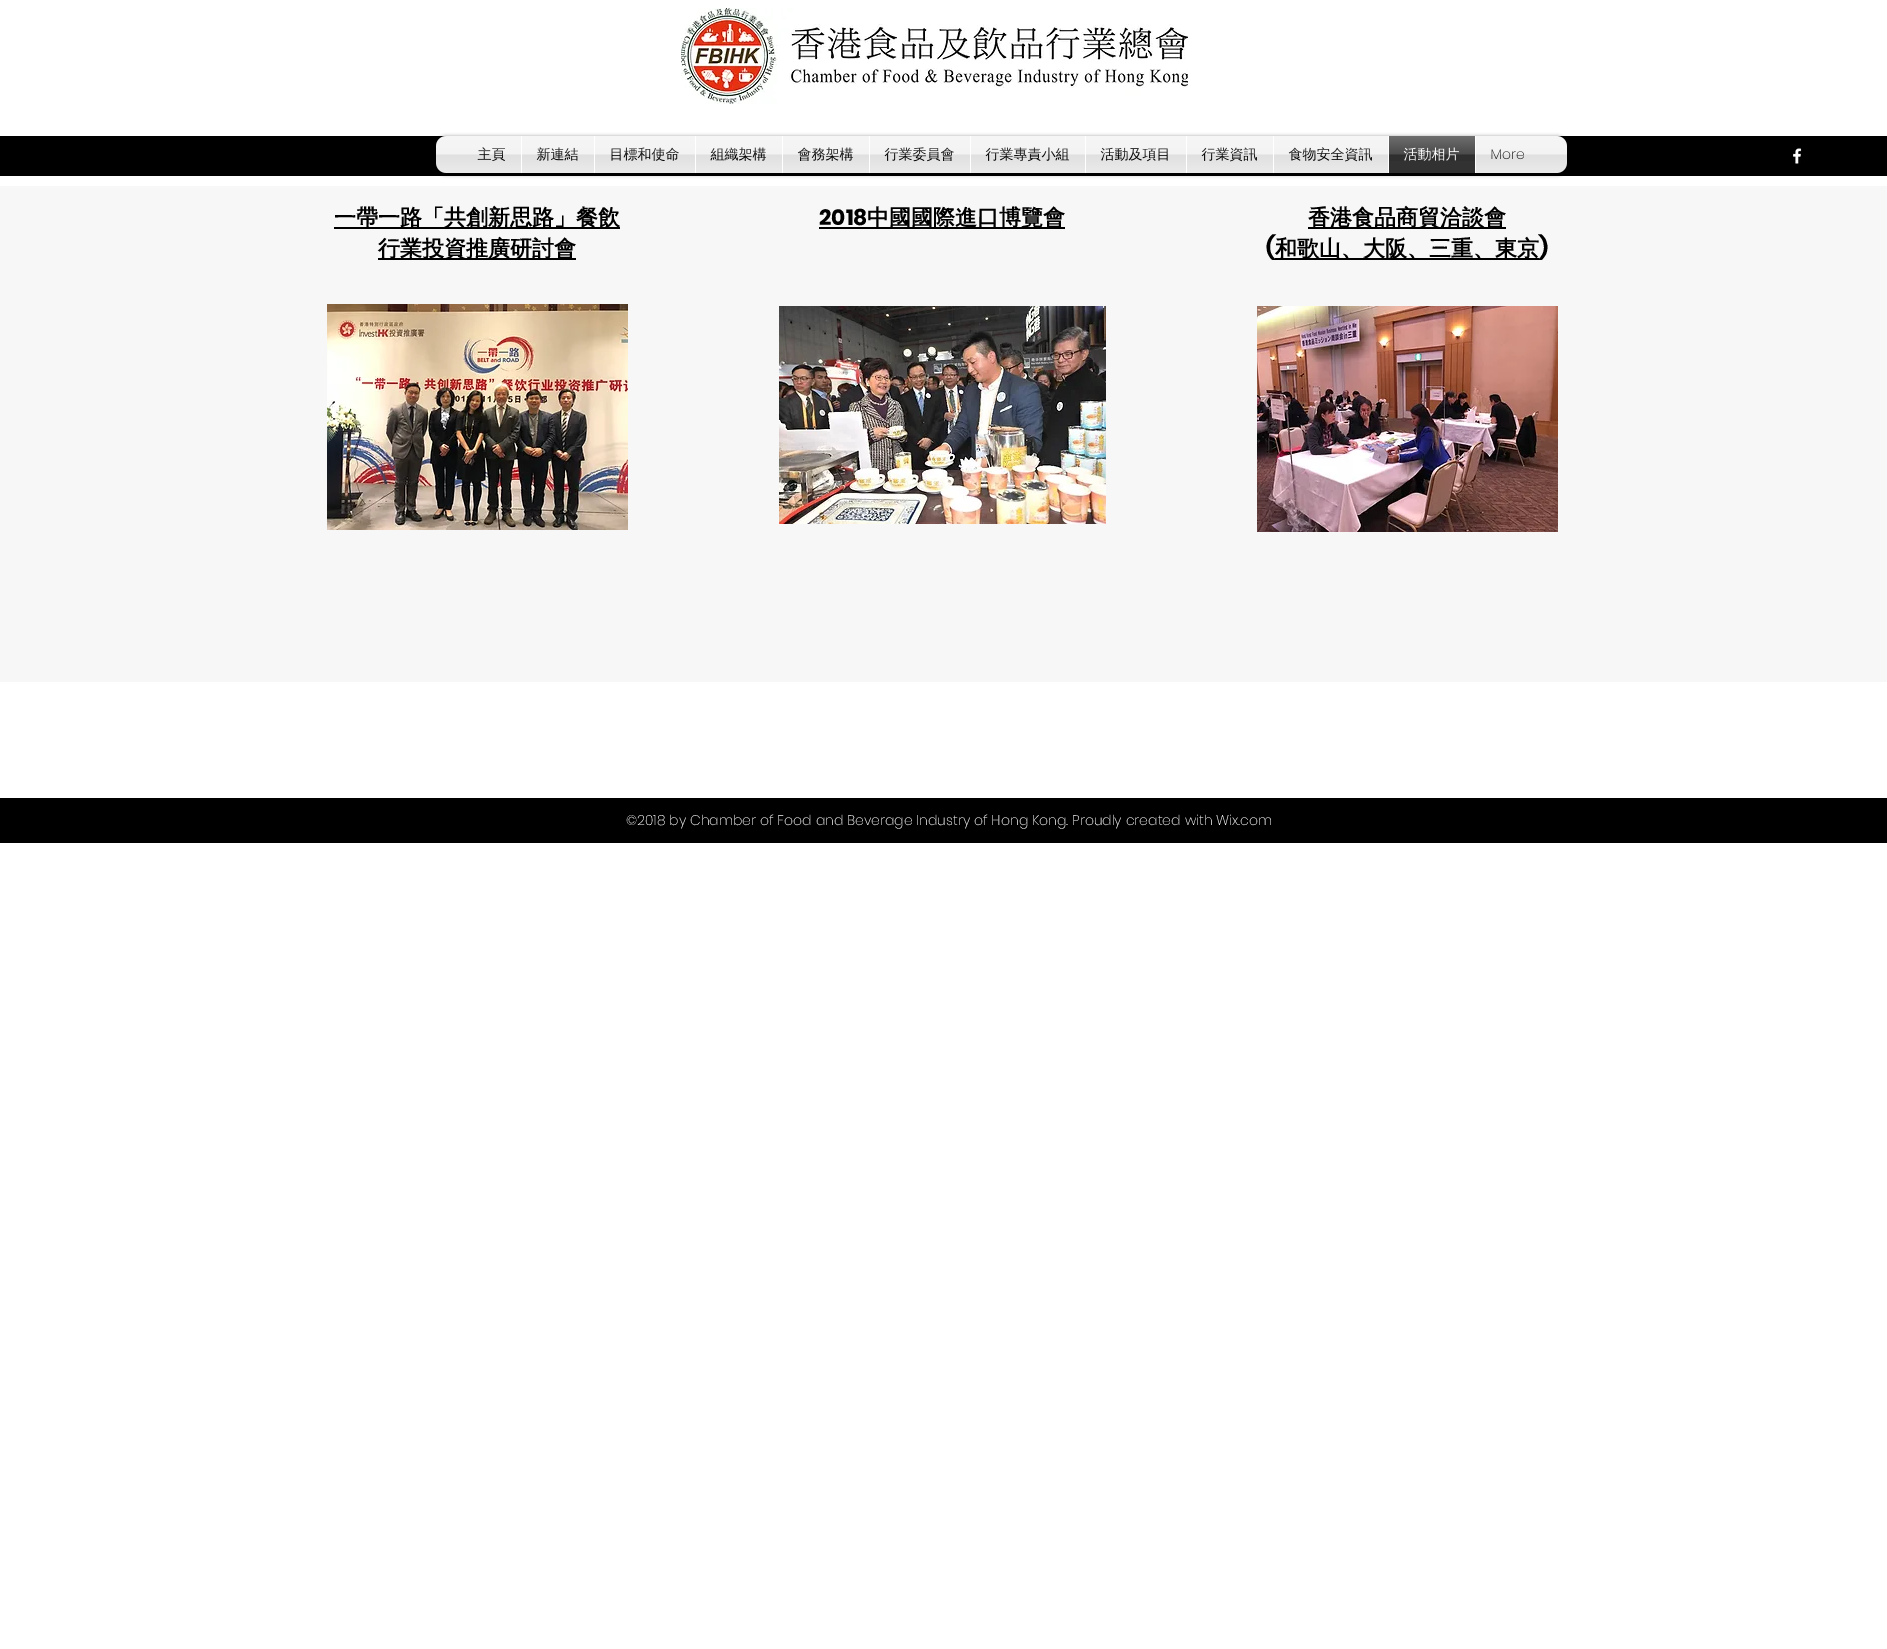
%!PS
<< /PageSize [1887 1649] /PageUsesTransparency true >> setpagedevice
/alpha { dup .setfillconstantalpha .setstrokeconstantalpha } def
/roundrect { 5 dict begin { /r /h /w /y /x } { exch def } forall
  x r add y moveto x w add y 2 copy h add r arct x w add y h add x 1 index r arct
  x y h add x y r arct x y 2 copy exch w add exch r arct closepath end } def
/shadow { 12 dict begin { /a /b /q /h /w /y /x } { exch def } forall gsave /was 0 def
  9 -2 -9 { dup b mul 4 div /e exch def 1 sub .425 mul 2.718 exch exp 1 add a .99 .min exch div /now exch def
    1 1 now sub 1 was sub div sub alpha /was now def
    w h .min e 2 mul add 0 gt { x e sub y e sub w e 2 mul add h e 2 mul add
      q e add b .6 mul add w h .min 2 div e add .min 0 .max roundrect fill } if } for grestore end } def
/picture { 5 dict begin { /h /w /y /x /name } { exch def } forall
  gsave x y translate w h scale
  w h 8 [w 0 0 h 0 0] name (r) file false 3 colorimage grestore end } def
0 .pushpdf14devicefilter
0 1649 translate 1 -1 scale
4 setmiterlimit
1 setgray
0 0 1887 1649 rectfill
(img1.rgb) 681 8 507 96 picture
0 setgray
0 136 1887 40 rectfill
436 137 1131 37 10 2 0.6 shadow
0.945 setgray
436 136 1131 37 10 roundrect fill
(img2.rgb) 436 136 1131 37 picture
463 136 58 37 rectfill
/WenQuanYiZenHei-Medium [14 0 0 -14 0 0] selectfont
0 setgray
478 159 moveto (主頁) show
(img3.rgb) 463 136 58 37 picture
0.945 setgray
522 136 72 37 rectfill
1 setgray
521 136 1 37 rectfill
0 setgray
537 159 moveto (新連結) show
(img4.rgb) 522 136 72 37 picture
0.945 setgray
595 136 100 37 rectfill
1 setgray
594 136 1 37 rectfill
0 setgray
610 159 moveto (目標和使命) show
(img5.rgb) 595 136 100 37 picture
0.945 setgray
696 136 86 37 rectfill
1 setgray
695 136 1 37 rectfill
0 setgray
711 159 moveto (組織架構) show
(img6.rgb) 696 136 86 37 picture
0.945 setgray
783 136 86 37 rectfill
1 setgray
782 136 1 37 rectfill
0 setgray
798 159 moveto (會務架構) show
(img7.rgb) 783 136 86 37 picture
0.945 setgray
870 136 100 37 rectfill
1 setgray
869 136 1 37 rectfill
0 setgray
885 159 moveto (行業委員會) show
(img8.rgb) 870 136 100 37 picture
0.945 setgray
971 136 114 37 rectfill
1 setgray
970 136 1 37 rectfill
0 setgray
986 159 moveto (行業專責小組) show
(img9.rgb) 971 136 114 37 picture
0.945 setgray
1086 136 100 37 rectfill
1 setgray
1085 136 1 37 rectfill
0 setgray
1101 159 moveto (活動及項目) show
(img10.rgb) 1086 136 100 37 picture
0.945 setgray
1187 136 86 37 rectfill
1 setgray
1186 136 1 37 rectfill
0 setgray
1202 159 moveto (行業資訊) show
(img11.rgb) 1187 136 86 37 picture
0.945 setgray
1274 136 114 37 rectfill
1 setgray
1273 136 1 37 rectfill
0 setgray
1289 159 moveto (食物安全資訊) show
(img12.rgb) 1274 136 114 37 picture
0.196 setgray
1389 136 86 37 rectfill
1 setgray
1388 136 1 37 rectfill
1404 159 moveto (活動相片) show
(img13.rgb) 1389 136 86 25 picture
0.945 setgray
1476 136 64 37 rectfill
1 setgray
1475 136 1 37 rectfill
/Poppins-ExtraLight [14 0 0 -14 0 0] selectfont
0 setgray
1491 159 moveto (More) show
(img14.rgb) 1476 136 64 37 picture
(img15.rgb) 1793 148 9 16 picture
0.969 setgray
0 186 1887 496 rectfill
0 setgray
334 227 286 2 rectfill
/WenQuanYiZenHei-Bold [22 0 0 -22 0 0] selectfont
334 225 moveto (一帶一路「共創新思路」餐飲) show
378 258 198 2 rectfill
378 256 moveto (行業投資推廣研討會) show
(img16.rgb) 327 304 301 226 picture
/Poppins-Bold [22 0 0 -22 0 0] selectfont
819 225 moveto (2018) show
819 227 246 2 rectfill
/WenQuanYiZenHei-Bold [22 0 0 -22 0 0] selectfont
867 225 moveto (中國國際進口博覽會) show
(img17.rgb) 779 306 327 218 picture
1308 227 198 2 rectfill
1308 225 moveto (香港食品商貿洽談會) show
/Poppins-Bold [22 0 0 -22 0 0] selectfont
1266 256 moveto (\() show
1275 258 264 2 rectfill
/WenQuanYiZenHei-Bold [22 0 0 -22 0 0] selectfont
1275 256 moveto (和歌山、大阪、三重、東京) show
/Poppins-Bold [22 0 0 -22 0 0] selectfont
1539 256 moveto (\)) show
(img18.rgb) 1257 306 301 226 picture
0 798 1887 45 rectfill
/Poppins-ExtraLight [14 0 0 -14 0 0] selectfont
1 setgray
626 825 moveto (©2018 by Chamber of Food and Beverage Industry of Hong Kong. Proudly created with Wix.com) show
.poppdf14devicefilter showpage
